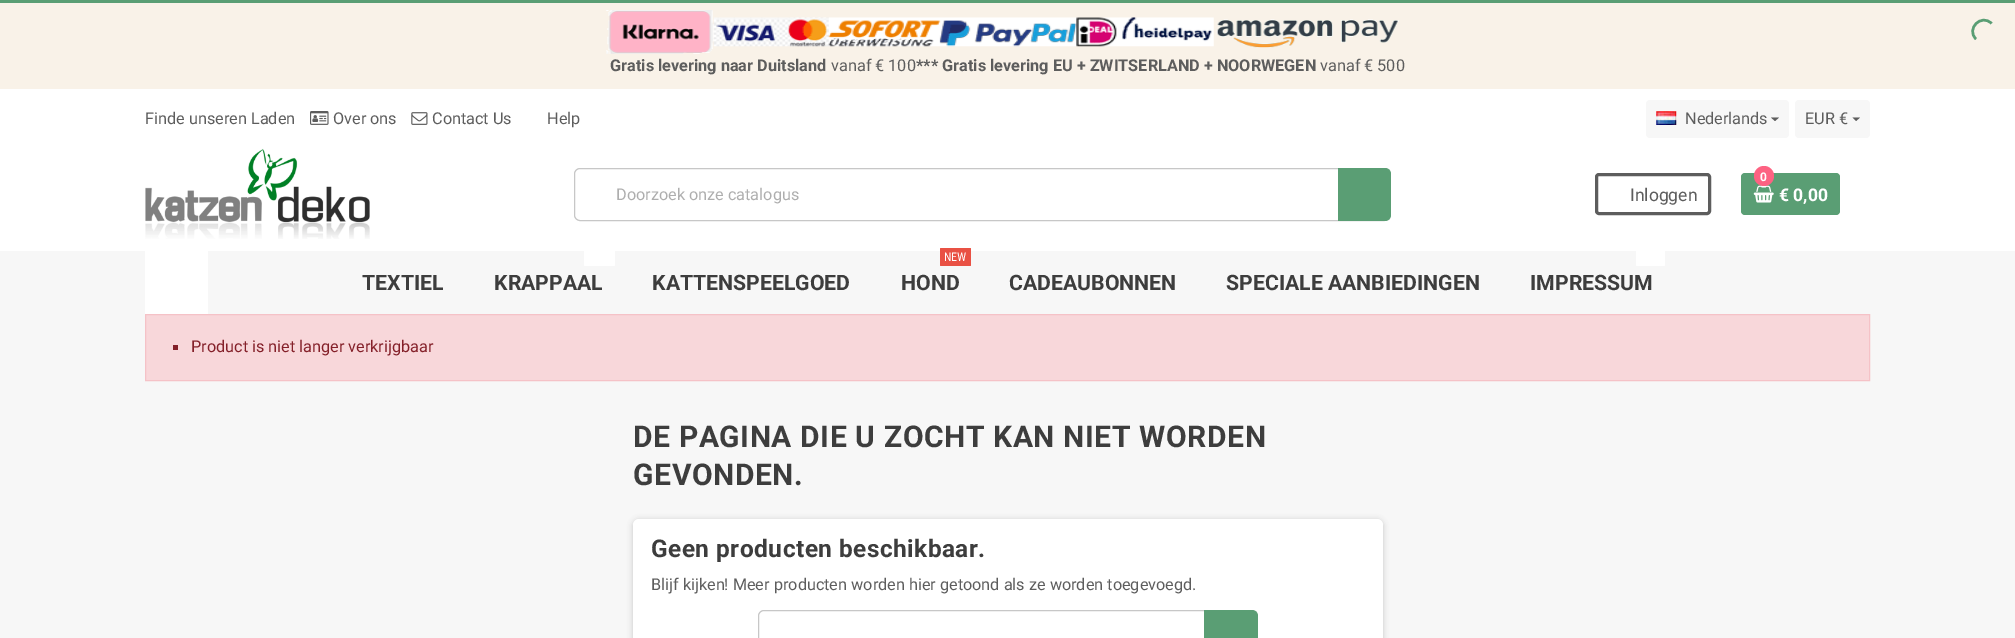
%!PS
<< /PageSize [2015 638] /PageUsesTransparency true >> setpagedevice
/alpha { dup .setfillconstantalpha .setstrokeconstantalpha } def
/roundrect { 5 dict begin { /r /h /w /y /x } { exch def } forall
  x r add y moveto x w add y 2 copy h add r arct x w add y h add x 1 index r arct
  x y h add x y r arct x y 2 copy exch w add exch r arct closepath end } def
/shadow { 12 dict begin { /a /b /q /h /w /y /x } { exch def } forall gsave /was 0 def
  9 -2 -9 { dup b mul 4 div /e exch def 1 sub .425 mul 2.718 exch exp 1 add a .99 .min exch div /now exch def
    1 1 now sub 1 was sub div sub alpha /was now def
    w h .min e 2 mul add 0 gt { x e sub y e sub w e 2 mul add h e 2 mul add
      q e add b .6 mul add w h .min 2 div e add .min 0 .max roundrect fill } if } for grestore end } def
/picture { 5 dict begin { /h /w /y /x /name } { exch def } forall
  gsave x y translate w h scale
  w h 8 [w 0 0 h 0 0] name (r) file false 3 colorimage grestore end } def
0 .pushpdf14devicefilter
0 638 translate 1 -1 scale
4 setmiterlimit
1 setgray
0 0 2015 638 rectfill
0.353 0.62 0.455 setrgbcolor
0 0 2015 3 rectfill
0.976 0.949 0.91 setrgbcolor
0 3 2015 86 rectfill
0.353 0.62 0.455 setrgbcolor
2.5 setlinewidth
newpath 1976 39 moveto 1965.5 29 1981.5 13 1991.5 23.5 curveto stroke
(img1.rgb) 606 10 108 44 picture
(img2.rgb) 713 17 501 30 picture
(img3.rgb) 1216 19 183 29 picture
/Roboto-Bold [16.25 0 0 -16.25 0 0] selectfont
0.365 setgray
610 71 moveto (Gratis levering naar Duitsland) show
/Roboto-Regular [16.25 0 0 -16.25 0 0] selectfont
831 71 moveto (vanaf € 100) show
/Roboto-Bold [16.25 0 0 -16.25 0 0] selectfont
916 71 moveto (*** Gratis levering EU + ZWITSERLAND + NOORWEGEN) show
/Roboto-Regular [16.25 0 0 -16.25 0 0] selectfont
1320 71 moveto (vanaf € 500) show
145 124 moveto (Finde unseren Laden) show
(img4.rgb) 310 111 19 14 picture
333 124 moveto (Over ons) show
(img5.rgb) 411 112 17 13 picture
432 124 moveto (Contact Us) show
547 124 moveto (Help) show
0.969 setgray
1646 100 143 38 4 roundrect fill
(img6.rgb) 1656 111 21 14 picture
0.365 setgray
1685 124 moveto (Nederlands) show
newpath 1771 117.5 moveto 1779 117.5 lineto 1775 121 lineto closepath fill
0.969 setgray
1795 100 75 38 4 roundrect fill
0.365 setgray
1805 124 moveto (EUR €) show
newpath 1852.5 117.5 moveto 1860 117.5 lineto 1856 121 lineto closepath fill
(img7.rgb) 145 148 225 91 picture
0.78 setgray
1 setlinewidth
574.5 168.5 815 52 5.5 roundrect stroke
0.682 setgray
616 200 moveto (Doorzoek onze catalogus) show
0.353 0.62 0.455 setrgbcolor
newpath 1338 168 moveto 1385 168 lineto 1388.5 168 1391 170.5 1391 174 curveto 1391 215 lineto 1391 218.5 1388.5 221 1385 221 curveto 1338 221 lineto closepath fill
0.365 setgray
3 setlinewidth
1596.5 174.5 113 39 2.5 roundrect stroke
/Roboto-Regular [17.5 0 0 -17.5 0 0] selectfont
1630 201 moveto (Inloggen) show
0.353 0.62 0.455 setrgbcolor
1741 173 99 42 4 roundrect fill
(img8.rgb) 1753 185 21 18 picture
0.992 0.384 0.51 setrgbcolor
newpath 1764 176 10 0 360 arc closepath fill
/Roboto-Bold [12 0 0 -12 0 0] selectfont
1 setgray
1760 181 moveto (0) show
/Roboto-Bold [17.5 0 0 -17.5 0 0] selectfont
1779 201 moveto (€ 0,00) show
0.969 setgray
0 251 2015 387 rectfill
1 setgray
145 251 63 63 rectfill
/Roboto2-Bold [21.25 0 0 -21.25 0 0] selectfont
0.239 setgray
362 290 moveto (TEXTIEL) show
1 setgray
584 248 31 18 1 roundrect fill
0.239 setgray
494 290 moveto (KRAPPAAL) show
652 290 moveto (KATTENSPEELGOED) show
0.914 0.318 0.267 setrgbcolor
940 248 31 18 1 roundrect fill
/RobotoCondensed-Regular [12 0 0 -12 0 0] selectfont
1 setgray
944 261 moveto (NEW) show
/Roboto2-Bold [21.25 0 0 -21.25 0 0] selectfont
0.239 setgray
901 290 moveto (HOND) show
1009 290 moveto (CADEAUBONNEN) show
1226 290 moveto (SPECIALE AANBIEDINGEN) show
1 setgray
1636 248 29 18 1 roundrect fill
0.239 setgray
1530 290 moveto (IMPRESSUM) show
0.973 0.843 0.855 setrgbcolor
newpath 145.5 314.5 moveto 1869.5 314.5 lineto 1869.5 380.5 lineto 145.5 380.5 lineto closepath gsave fill grestore
0.961 0.761 0.78 setrgbcolor
1 setlinewidth
stroke
0.518 0.125 0.161 setrgbcolor
173 345 5 5 rectfill
/Roboto-Regular [16.25 0 0 -16.25 0 0] selectfont
191 352 moveto (Product is niet langer verkrijgbaar) show
/Roboto2-Bold [30 0 0 -30 0 0] selectfont
0.239 setgray
633 447 moveto 0.6 0 (DE PAGINA DIE U ZOCHT KAN NIET WORDEN) ashow
633 485 moveto 0.6 0 (GEVONDEN.) ashow
0 setgray
633 520 750 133 6 3 0.2 shadow
1 setgray
633 519 750 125 6 roundrect fill
/Roboto2-Bold [24.4 0 0 -24.4 0 0] selectfont
0.239 setgray
651 557 moveto 0.5 0 (Geen producten beschikbaar.) ashow
/Roboto-Regular [16.25 0 0 -16.25 0 0] selectfont
0.365 setgray
651 590 moveto (Blijf kijken! Meer producten worden hier getoond als ze worden toegevoegd.) show
0.78 setgray
758.5 610.5 497 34 5.5 roundrect stroke
0.353 0.62 0.455 setrgbcolor
newpath 1204 610 moveto 1252 610 lineto 1255.5 610 1258 612.5 1258 616 curveto 1258 638 lineto 1258 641.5 1255.5 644 1252 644 curveto 1204 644 lineto closepath fill
.poppdf14devicefilter showpage
